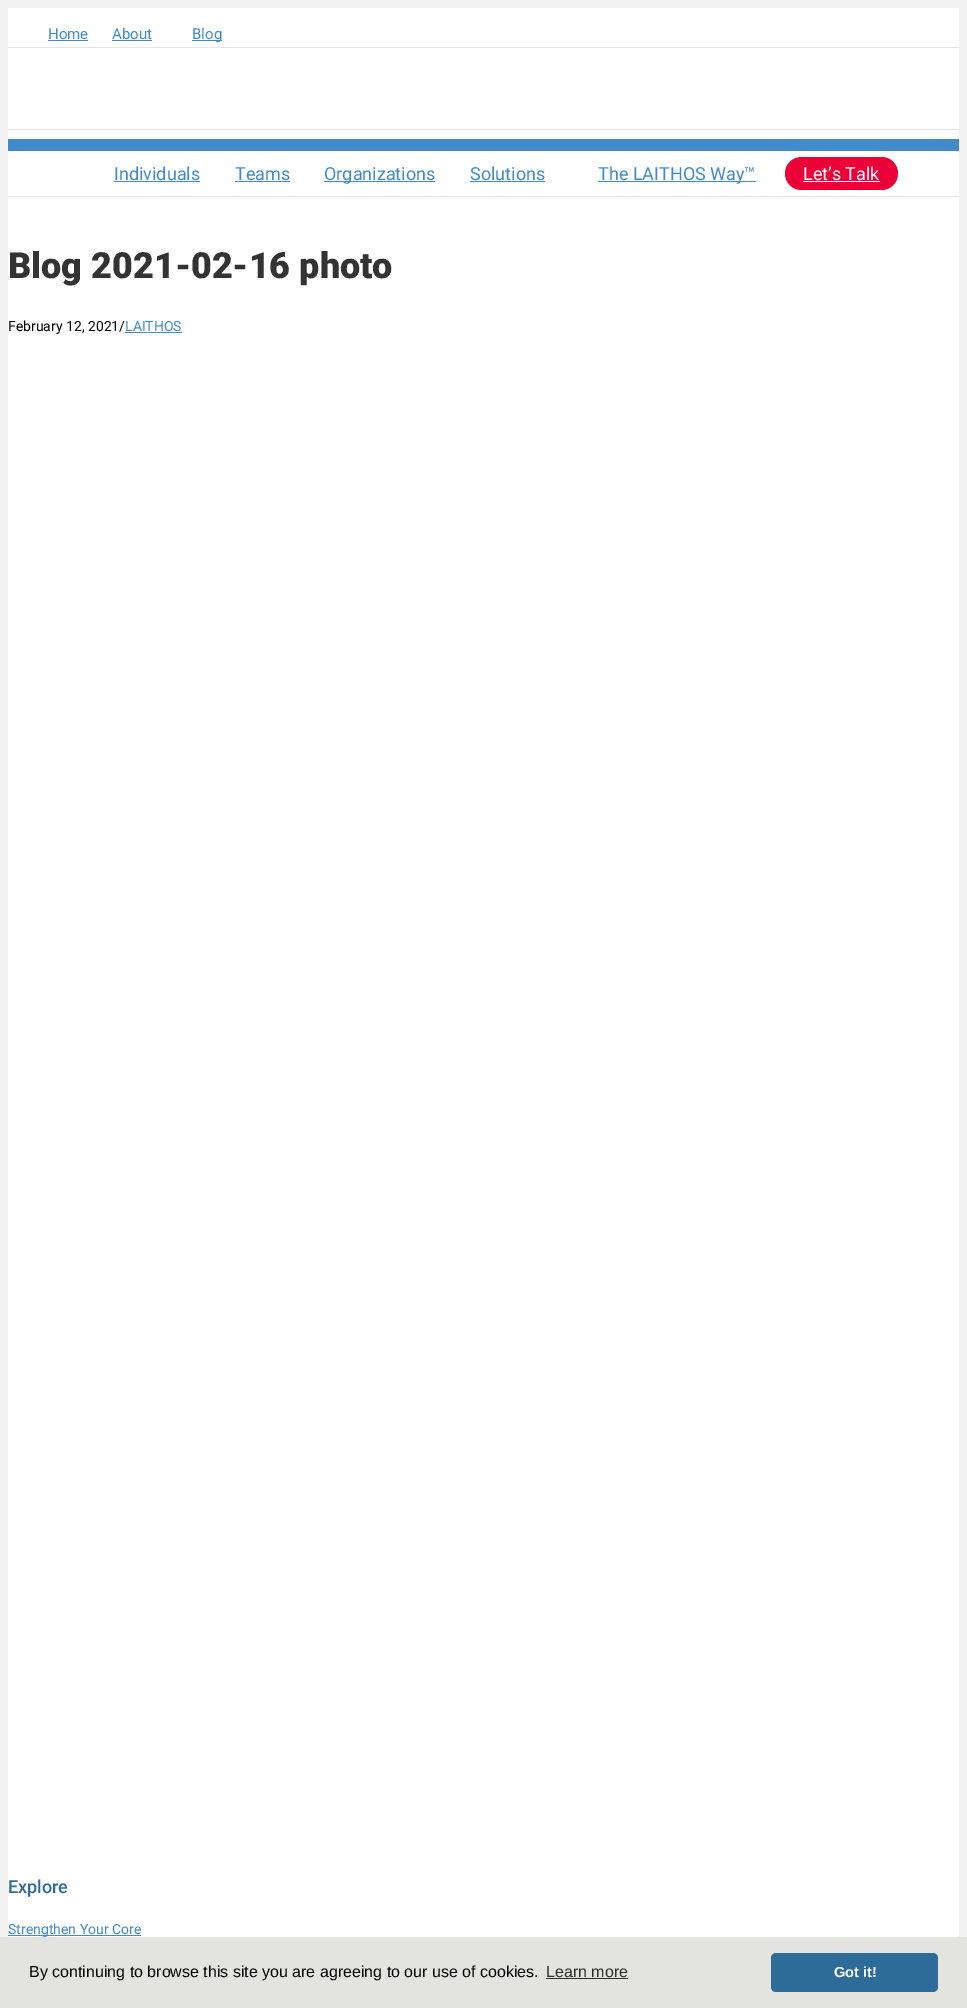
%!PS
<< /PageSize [967 2008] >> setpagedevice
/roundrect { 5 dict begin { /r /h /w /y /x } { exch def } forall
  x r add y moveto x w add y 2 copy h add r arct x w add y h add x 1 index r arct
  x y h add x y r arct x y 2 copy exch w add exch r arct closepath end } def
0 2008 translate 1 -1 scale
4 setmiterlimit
0.949 setgray
0 0 967 2008 rectfill
1 setgray
8 8 951 39 rectfill
0.902 setgray
8 47 951 1 rectfill
/Roboto-Regular [15 0 0 -15 0 0] selectfont
0.259 0.545 0.792 setrgbcolor
48 39 moveto (Home) show
48 40 40 1 rectfill
112 39 moveto (About) show
112 40 40 1 rectfill
192 40 30 1 rectfill
192 39 moveto (Blog) show
1 setgray
8 48 951 148 rectfill
0.902 setgray
8 129 951 1 rectfill
8 196 951 1 rectfill
0.259 0.545 0.792 setrgbcolor
8 139 951 12 rectfill
/Roboto-Regular [18 0 0 -18 0 0] selectfont
114 180 moveto (Individuals) show
114 181 86 1 rectfill
235 180 moveto (Teams) show
235 181 55 1 rectfill
324 181 111 1 rectfill
324 180 moveto (Organizations) show
470 180 moveto (Solutions) show
470 181 75 1 rectfill
598 181 158 1 rectfill
598 180 moveto (The LAITHOS Way™) show
0.925 0 0.22 setrgbcolor
785 157 113 33 16.5 roundrect fill
1 setgray
803 180 moveto (Let’s Talk) show
803 181 77 1 rectfill
8 197 951 1740 rectfill
/Roboto-Black [36 0 0 -36 0 0] selectfont
0.2 setgray
8 278 moveto (Blog 2021-02-16 photo) show
/Roboto-Regular [14 0 0 -14 0 0] selectfont
0 setgray
8 331 moveto (February 12, 2021/) show
0.259 0.545 0.792 setrgbcolor
125 331 moveto (LAITHOS) show
125 332 57 1 rectfill
/Roboto-Medium [18 0 0 -18 0 0] selectfont
0.176 0.424 0.6 setrgbcolor
8 1893 moveto (Explore) show
0.259 0.545 0.792 setrgbcolor
8 1935 133 1 rectfill
/Roboto-Regular [14 0 0 -14 0 0] selectfont
8 1934 moveto (Strengthen Your Core) show
0.89 0.89 0.878 setrgbcolor
0 1937 967 71 rectfill
/LiberationSans-Regular [16 0 0 -16 0 0] selectfont
0 setgray
29 1977 moveto (By continuing to browse this site you are agreeing to our use of cookies.) show
0.176 setgray
546 1977 moveto (Learn more) show
546 1978 82 1 rectfill
0.176 0.424 0.6 setrgbcolor
771 1953 167 39 5 roundrect fill
/LiberationSans-Bold [14.5 0 0 -14.5 0 0] selectfont
1 setgray
834 1977 moveto (Got it!) show
showpage
